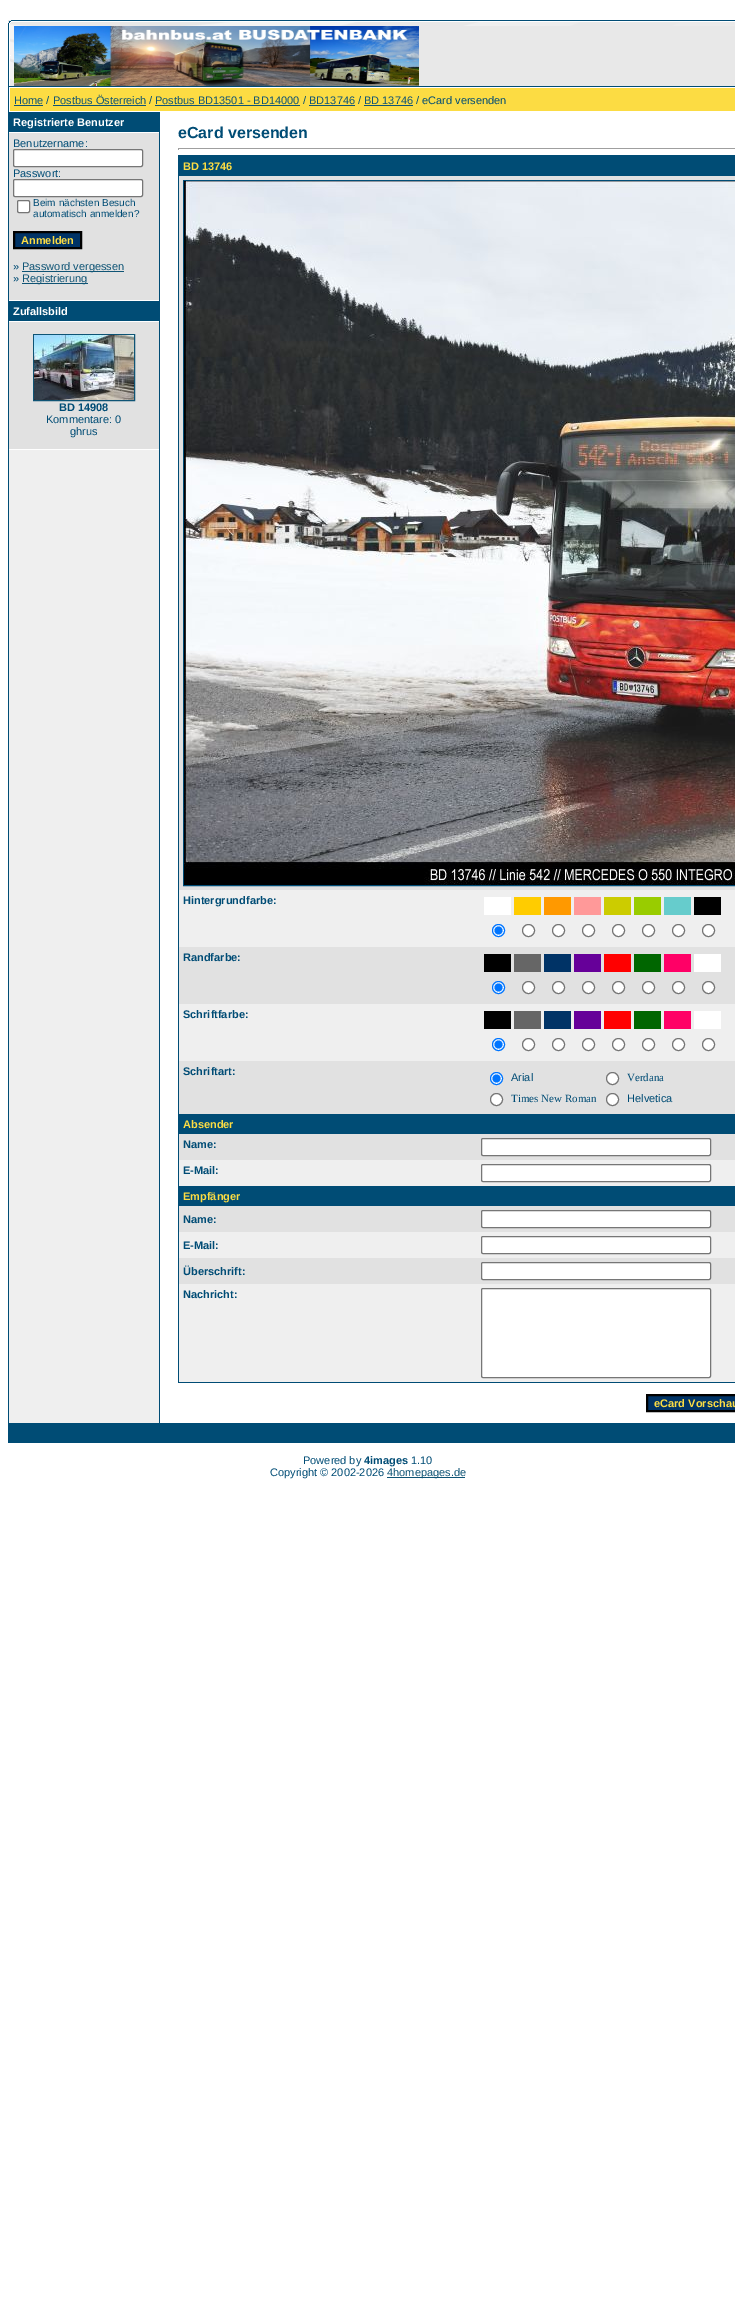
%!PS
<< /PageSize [735 2297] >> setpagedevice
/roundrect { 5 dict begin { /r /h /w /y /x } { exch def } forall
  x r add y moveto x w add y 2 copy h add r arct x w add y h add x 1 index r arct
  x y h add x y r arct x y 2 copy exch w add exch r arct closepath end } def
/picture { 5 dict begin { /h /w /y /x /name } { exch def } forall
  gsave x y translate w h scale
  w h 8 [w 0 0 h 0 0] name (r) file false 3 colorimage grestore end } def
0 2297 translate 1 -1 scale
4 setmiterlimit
1 setgray
0 0 735 2297 rectfill
0.91 setgray
8 20 727 66 rectfill
(img1.rgb) 8 20 6 6 picture
(img2.rgb) 14 20 721 6 picture
(img3.rgb) 8 26 6 60 picture
(img4.rgb) 14 26 405 60 picture
0 0.298 0.459 setrgbcolor
8 86 727 1357 rectfill
1 setgray
9 87 726 1336 rectfill
0.988 0.863 0.263 setrgbcolor
10 88 725 23 rectfill
/LiberationSans-Regular [11 0 0 -11 0 0] selectfont
0.059 0.329 0.459 setrgbcolor
14 104 moveto (Home) show
14 105 29 1 rectfill
0 0.298 0.459 setrgbcolor
46 104 moveto (/) show
0.059 0.329 0.459 setrgbcolor
53 104 moveto (Postbus Österreich) show
53 105 93 1 rectfill
0 0.298 0.459 setrgbcolor
149 104 moveto (/) show
0.059 0.329 0.459 setrgbcolor
155 104 moveto (Postbus BD13501 - BD14000) show
155 105 145 1 rectfill
0 0.298 0.459 setrgbcolor
303 104 moveto (/) show
0.059 0.329 0.459 setrgbcolor
309 104 moveto (BD13746) show
309 105 46 1 rectfill
0 0.298 0.459 setrgbcolor
358 104 moveto (/) show
0.059 0.329 0.459 setrgbcolor
364 104 moveto (BD 13746) show
364 105 49 1 rectfill
0 0.298 0.459 setrgbcolor
416 104 moveto (/ eCard versenden) show
0.937 setgray
9 450 150 973 rectfill
0 0.298 0.459 setrgbcolor
9 112 150 20 rectfill
/LiberationSans-Bold [11 0 0 -11 0 0] selectfont
1 setgray
13 126 moveto (Registrierte Benutzer) show
0.882 setgray
9 133 150 167 rectfill
/LiberationSans-Regular [11 0 0 -11 0 0] selectfont
0 0.298 0.459 setrgbcolor
13 147 moveto (Benutzername:) show
1 setgray
13.5 149.5 129 17 1.5 roundrect gsave fill grestore
0.463 setgray
stroke
0 0.298 0.459 setrgbcolor
13 177 moveto (Passwort:) show
1 setgray
13.5 179.5 129 17 1.5 roundrect gsave fill grestore
0.463 setgray
stroke
1 setgray
17.5 200.5 12 12 1.5 roundrect gsave fill grestore
0.463 setgray
stroke
/LiberationSans-Regular [10 0 0 -10 0 0] selectfont
0 0.298 0.459 setrgbcolor
33 206 moveto (Beim nächsten Besuch) show
33 217 moveto (automatisch anmelden?) show
0 0.2 0.4 setrgbcolor
newpath 14 232 moveto 81 232 lineto 81 248 lineto 14 248 lineto closepath gsave fill grestore
0 setgray
2 setlinewidth
stroke
/LiberationSans-Bold [11 0 0 -11 0 0] selectfont
0.988 0.863 0.263 setrgbcolor
21 244 moveto (Anmelden) show
/LiberationSans-Regular [11 0 0 -11 0 0] selectfont
0 0.298 0.459 setrgbcolor
13 270 moveto (») show
0.059 0.329 0.459 setrgbcolor
22 271 102 1 rectfill
22 270 moveto (Password vergessen) show
0 0.298 0.459 setrgbcolor
13 282 moveto (») show
0.059 0.329 0.459 setrgbcolor
22 283 66 1 rectfill
22 282 moveto (Registrierung) show
0 0.298 0.459 setrgbcolor
9 301 150 20 rectfill
/LiberationSans-Bold [11 0 0 -11 0 0] selectfont
1 setgray
13 315 moveto (Zufallsbild) show
0.882 setgray
9 322 150 127 rectfill
0.059 0.329 0.459 setrgbcolor
1 setlinewidth
33.5 334.5 101 66 rectstroke
(img5.rgb) 34 335 100 65 picture
0 0.298 0.459 setrgbcolor
59 411 moveto (BD 14908) show
/LiberationSans-Regular [11 0 0 -11 0 0] selectfont
46 423 moveto (Kommentare: 0) show
70 435 moveto (ghrus) show
159 112 1 1311 rectfill
/LiberationSans-Bold [16 0 0 -16 0 0] selectfont
178 138 moveto (eCard versenden) show
0.624 setgray
178 148 557 1 rectfill
178 148 1 2 rectfill
0 0.298 0.459 setrgbcolor
178 155 557 1228 rectfill
/LiberationSans-Bold [11 0 0 -11 0 0] selectfont
0.988 0.863 0.263 setrgbcolor
183 170 moveto (BD 13746) show
0.882 setgray
179 176 556 714 rectfill
0 0.298 0.459 setrgbcolor
183.5 180.5 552 705 rectstroke
(img6.rgb) 184 181 551 704 picture
0.937 setgray
179 890 556 57 rectfill
0 0.298 0.459 setrgbcolor
183 904 moveto (Hintergrundfarbe:) show
1 setgray
484 897 27 18 rectfill
1 0.8 0 setrgbcolor
514 897 27 18 rectfill
1 0.6 0 setrgbcolor
544 897 27 18 rectfill
1 0.6 0.6 setrgbcolor
574 897 27 18 rectfill
0.8 0.8 0 setrgbcolor
604 897 27 18 rectfill
0.6 0.8 0 setrgbcolor
634 897 27 18 rectfill
0.4 0.8 0.8 setrgbcolor
664 897 27 18 rectfill
0 setgray
694 897 27 18 rectfill
1 setgray
newpath 498.5 930.5 6 0 360 arc closepath gsave fill grestore
0 0.459 1 setrgbcolor
stroke
newpath 498.5 930.5 4 0 360 arc closepath fill
1 setgray
newpath 528.5 930.5 6 0 360 arc closepath gsave fill grestore
0.463 setgray
stroke
1 setgray
newpath 558.5 930.5 6 0 360 arc closepath gsave fill grestore
0.463 setgray
stroke
1 setgray
newpath 588.5 930.5 6 0 360 arc closepath gsave fill grestore
0.463 setgray
stroke
1 setgray
newpath 618.5 930.5 6 0 360 arc closepath gsave fill grestore
0.463 setgray
stroke
1 setgray
newpath 648.5 930.5 6 0 360 arc closepath gsave fill grestore
0.463 setgray
stroke
1 setgray
newpath 678.5 930.5 6 0 360 arc closepath gsave fill grestore
0.463 setgray
stroke
1 setgray
newpath 708.5 930.5 6 0 360 arc closepath gsave fill grestore
0.463 setgray
stroke
0.882 setgray
179 947 556 57 rectfill
0 0.298 0.459 setrgbcolor
183 961 moveto (Randfarbe:) show
0 setgray
484 954 27 18 rectfill
0.4 setgray
514 954 27 18 rectfill
0 0.2 0.4 setrgbcolor
544 954 27 18 rectfill
0.4 0 0.6 setrgbcolor
574 954 27 18 rectfill
1 0 0 setrgbcolor
604 954 27 18 rectfill
0 0.4 0 setrgbcolor
634 954 27 18 rectfill
1 0 0.4 setrgbcolor
664 954 27 18 rectfill
1 setgray
694 954 27 18 rectfill
newpath 498.5 987.5 6 0 360 arc closepath gsave fill grestore
0 0.459 1 setrgbcolor
stroke
newpath 498.5 987.5 4 0 360 arc closepath fill
1 setgray
newpath 528.5 987.5 6 0 360 arc closepath gsave fill grestore
0.463 setgray
stroke
1 setgray
newpath 558.5 987.5 6 0 360 arc closepath gsave fill grestore
0.463 setgray
stroke
1 setgray
newpath 588.5 987.5 6 0 360 arc closepath gsave fill grestore
0.463 setgray
stroke
1 setgray
newpath 618.5 987.5 6 0 360 arc closepath gsave fill grestore
0.463 setgray
stroke
1 setgray
newpath 648.5 987.5 6 0 360 arc closepath gsave fill grestore
0.463 setgray
stroke
1 setgray
newpath 678.5 987.5 6 0 360 arc closepath gsave fill grestore
0.463 setgray
stroke
1 setgray
newpath 708.5 987.5 6 0 360 arc closepath gsave fill grestore
0.463 setgray
stroke
0.937 setgray
179 1004 556 57 rectfill
0 0.298 0.459 setrgbcolor
183 1018 moveto (Schriftfarbe:) show
0 setgray
484 1011 27 18 rectfill
0.4 setgray
514 1011 27 18 rectfill
0 0.2 0.4 setrgbcolor
544 1011 27 18 rectfill
0.4 0 0.6 setrgbcolor
574 1011 27 18 rectfill
1 0 0 setrgbcolor
604 1011 27 18 rectfill
0 0.4 0 setrgbcolor
634 1011 27 18 rectfill
1 0 0.4 setrgbcolor
664 1011 27 18 rectfill
1 setgray
694 1011 27 18 rectfill
newpath 498.5 1044.5 6 0 360 arc closepath gsave fill grestore
0 0.459 1 setrgbcolor
stroke
newpath 498.5 1044.5 4 0 360 arc closepath fill
1 setgray
newpath 528.5 1044.5 6 0 360 arc closepath gsave fill grestore
0.463 setgray
stroke
1 setgray
newpath 558.5 1044.5 6 0 360 arc closepath gsave fill grestore
0.463 setgray
stroke
1 setgray
newpath 588.5 1044.5 6 0 360 arc closepath gsave fill grestore
0.463 setgray
stroke
1 setgray
newpath 618.5 1044.5 6 0 360 arc closepath gsave fill grestore
0.463 setgray
stroke
1 setgray
newpath 648.5 1044.5 6 0 360 arc closepath gsave fill grestore
0.463 setgray
stroke
1 setgray
newpath 678.5 1044.5 6 0 360 arc closepath gsave fill grestore
0.463 setgray
stroke
1 setgray
newpath 708.5 1044.5 6 0 360 arc closepath gsave fill grestore
0.463 setgray
stroke
0.882 setgray
179 1061 556 53 rectfill
0 0.298 0.459 setrgbcolor
183 1075 moveto (Schriftart:) show
1 setgray
newpath 496.5 1078.5 6 0 360 arc closepath gsave fill grestore
0 0.459 1 setrgbcolor
stroke
newpath 496.5 1078.5 4 0 360 arc closepath fill
/LiberationSans-Regular [11 0 0 -11 0 0] selectfont
0 0.298 0.459 setrgbcolor
511 1081 moveto (Arial) show
1 setgray
newpath 612.5 1078.5 6 0 360 arc closepath gsave fill grestore
0.463 setgray
stroke
/LiberationSerif-Regular [11 0 0 -11 0 0] selectfont
0 0.298 0.459 setrgbcolor
627 1081 moveto (Verdana) show
1 setgray
newpath 496.5 1099.5 6 0 360 arc closepath gsave fill grestore
0.463 setgray
stroke
0 0.298 0.459 setrgbcolor
511 1102 moveto (Times New Roman) show
1 setgray
newpath 612.5 1099.5 6 0 360 arc closepath gsave fill grestore
0.463 setgray
stroke
/LiberationSans-Regular [11 0 0 -11 0 0] selectfont
0 0.298 0.459 setrgbcolor
627 1102 moveto (Helvetica) show
/LiberationSans-Bold [11 0 0 -11 0 0] selectfont
0.988 0.863 0.263 setrgbcolor
183 1128 moveto (Absender) show
0.882 setgray
179 1134 556 26 rectfill
0 0.298 0.459 setrgbcolor
183 1148 moveto (Name:) show
1 setgray
481.5 1138.5 229 17 1.5 roundrect gsave fill grestore
0.463 setgray
stroke
0.937 setgray
179 1160 556 26 rectfill
0 0.298 0.459 setrgbcolor
183 1174 moveto (E-Mail:) show
1 setgray
481.5 1164.5 229 17 1.5 roundrect gsave fill grestore
0.463 setgray
stroke
0.988 0.863 0.263 setrgbcolor
183 1200 moveto (Empfänger) show
0.882 setgray
179 1206 556 26 rectfill
0 0.298 0.459 setrgbcolor
183 1223 moveto (Name:) show
1 setgray
481.5 1210.5 229 17 1.5 roundrect gsave fill grestore
0.463 setgray
stroke
0.937 setgray
179 1232 556 26 rectfill
0 0.298 0.459 setrgbcolor
183 1249 moveto (E-Mail:) show
1 setgray
481.5 1236.5 229 17 1.5 roundrect gsave fill grestore
0.463 setgray
stroke
0.882 setgray
179 1258 556 26 rectfill
0 0.298 0.459 setrgbcolor
183 1275 moveto (Überschrift:) show
1 setgray
481.5 1262.5 229 17 1.5 roundrect gsave fill grestore
0.463 setgray
stroke
0.937 setgray
179 1284 556 98 rectfill
0 0.298 0.459 setrgbcolor
183 1298 moveto (Nachricht:) show
1 setgray
481.5 1288.5 229 89 1.5 roundrect gsave fill grestore
0.463 setgray
stroke
0 0.2 0.4 setrgbcolor
newpath 647 1395 moveto 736 1395 lineto 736 1411 lineto 647 1411 lineto closepath gsave fill grestore
0 setgray
2 setlinewidth
stroke
0.988 0.863 0.263 setrgbcolor
654 1407 moveto (eCard Vorschau) show
/LiberationSans-Regular [11 0 0 -11 0 0] selectfont
0 0.298 0.459 setrgbcolor
303 1464 moveto (Powered by) show
/LiberationSans-Bold [11 0 0 -11 0 0] selectfont
364 1464 moveto (4images) show
/LiberationSans-Regular [11 0 0 -11 0 0] selectfont
411 1464 moveto (1.10) show
270 1476 moveto (Copyright © 2002-2026) show
0.059 0.329 0.459 setrgbcolor
387 1477 78 1 rectfill
387 1476 moveto (4homepages.de) show
showpage
